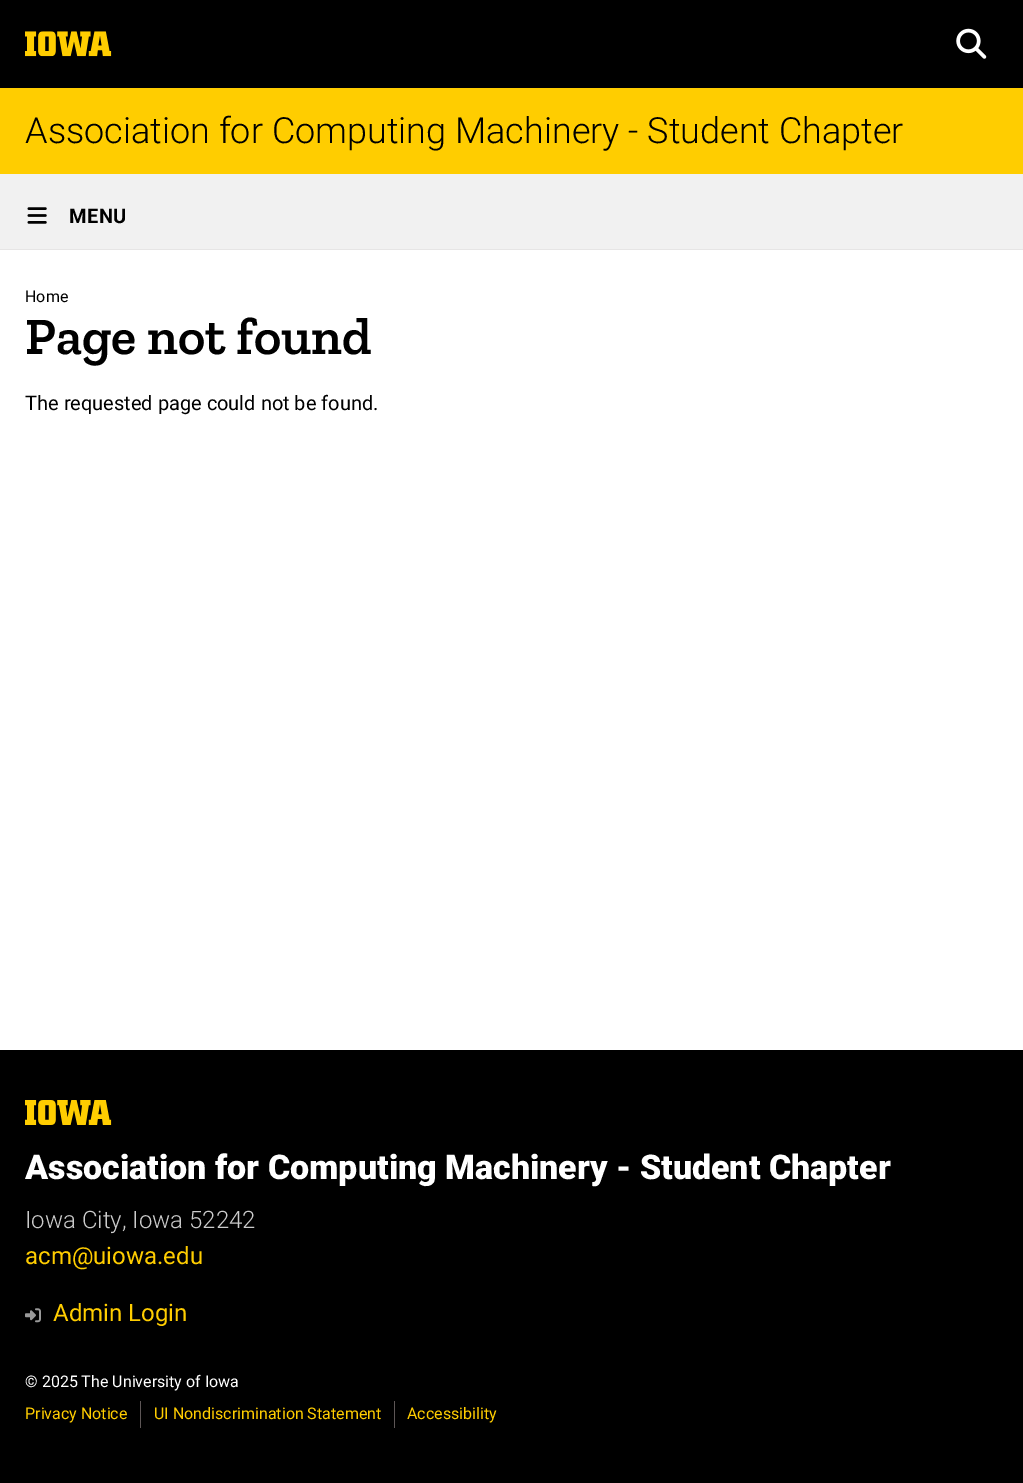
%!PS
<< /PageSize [1023 1483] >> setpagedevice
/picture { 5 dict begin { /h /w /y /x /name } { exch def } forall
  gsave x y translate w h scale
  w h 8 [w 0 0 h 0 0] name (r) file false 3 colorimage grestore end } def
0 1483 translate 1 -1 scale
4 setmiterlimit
1 setgray
0 0 1023 1483 rectfill
0 setgray
0 0 1023 88 rectfill
(img1.rgb) 25 31 87 26 picture
(img2.rgb) 956 28 31 31 picture
1 0.804 0 setrgbcolor
0 88 1023 86 rectfill
/Roboto-Light [36 0 0 -36 0 0] selectfont
0 setgray
25 143 moveto (Association for Computing Machinery - Student Chapter) show
0.902 0.898 0.898 setrgbcolor
0 249 1023 1 rectfill
0.945 setgray
0 174 1023 75 rectfill
(img3.rgb) 27 207 20 17 picture
/Roboto-Bold [20 0 0 -20 0 0] selectfont
0 setgray
69 223 moveto 0.5 0 (MENU) ashow
/Roboto-Regular [16 0 0 -16 0 0] selectfont
25 302 moveto (Home) show
/ZillaSlab-SemiBold [52.5 0 0 -52.5 0 0] selectfont
25 354 moveto (Page not found) show
/Roboto-Regular [20 0 0 -20 0 0] selectfont
25 410 moveto (The requested page could not be found.) show
0 1050 1023 433 rectfill
(img4.rgb) 25 1100 87 25 picture
/Roboto-Black [34 0 0 -34 0 0] selectfont
1 setgray
25 1179 moveto (Association for Computing Machinery - Student Chapter) show
/Roboto-Light [24 0 0 -24 0 0] selectfont
0.8 setgray
25 1228 moveto (Iowa City, Iowa 52242) show
/Roboto-Regular [24 0 0 -24 0 0] selectfont
1 0.804 0 setrgbcolor
25 1264 moveto (acm@uiowa.edu) show
(img5.rgb) 25 1308 16 15 picture
53 1321 moveto (Admin Login) show
/Roboto-Regular [16 0 0 -16 0 0] selectfont
1 setgray
25 1387 moveto (© 2025 The University of Iowa) show
0.365 0.337 0.337 setrgbcolor
140 1401 1 27 rectfill
1 0.804 0 setrgbcolor
25 1419 moveto (Privacy Notice) show
0.365 0.337 0.337 setrgbcolor
394 1401 1 27 rectfill
1 0.804 0 setrgbcolor
154 1419 moveto (UI Nondiscrimination Statement) show
407 1419 moveto (Accessibility) show
showpage
